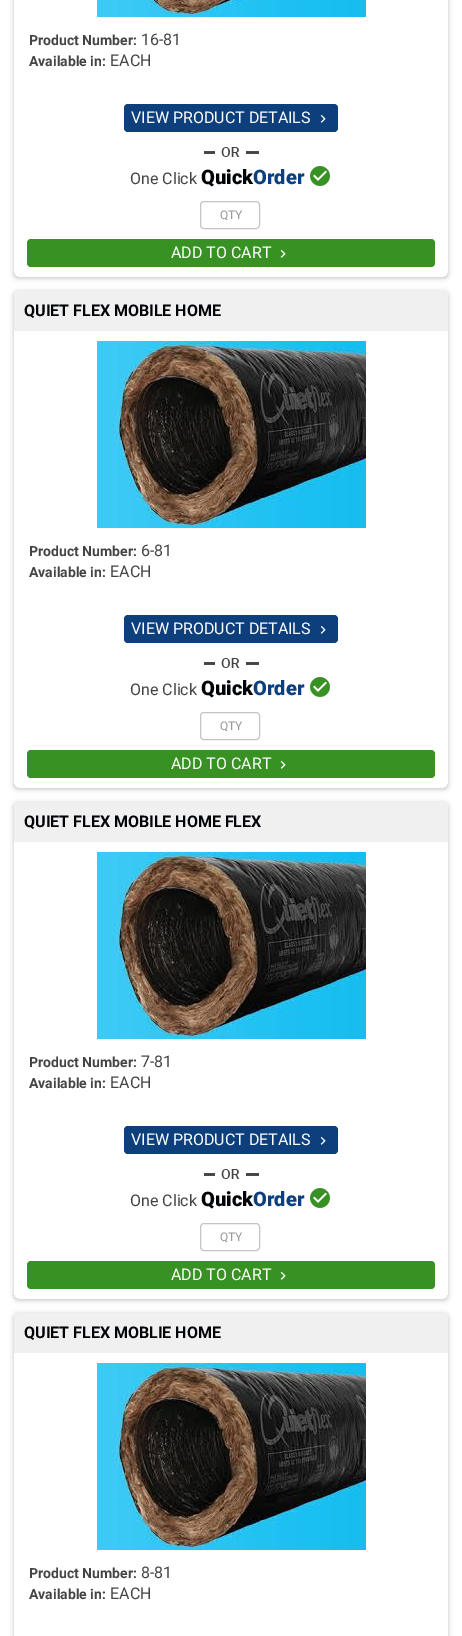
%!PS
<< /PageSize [462 1636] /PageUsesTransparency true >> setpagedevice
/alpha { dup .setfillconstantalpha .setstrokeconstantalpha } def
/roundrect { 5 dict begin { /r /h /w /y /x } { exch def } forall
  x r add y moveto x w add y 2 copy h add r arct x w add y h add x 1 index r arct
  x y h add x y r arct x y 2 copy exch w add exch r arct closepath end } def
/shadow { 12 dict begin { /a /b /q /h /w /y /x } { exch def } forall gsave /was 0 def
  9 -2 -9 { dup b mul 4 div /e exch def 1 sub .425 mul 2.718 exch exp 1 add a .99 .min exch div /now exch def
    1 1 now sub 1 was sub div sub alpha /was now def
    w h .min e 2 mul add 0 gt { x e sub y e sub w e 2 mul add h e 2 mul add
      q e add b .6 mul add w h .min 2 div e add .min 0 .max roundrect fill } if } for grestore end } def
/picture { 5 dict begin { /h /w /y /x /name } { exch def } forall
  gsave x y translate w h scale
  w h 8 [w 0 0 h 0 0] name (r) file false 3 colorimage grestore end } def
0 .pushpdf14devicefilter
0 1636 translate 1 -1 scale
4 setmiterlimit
1 setgray
0 0 462 1636 rectfill
gsave
newpath 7 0 moveto 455 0 lineto 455 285 lineto 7 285 lineto closepath 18 -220 moveto 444 -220 lineto 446 -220 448 -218 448 -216 curveto 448 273 lineto 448 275 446 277 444 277 curveto 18 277 lineto 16 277 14 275 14 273 curveto 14 -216 lineto 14 -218 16 -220 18 -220 curveto closepath eoclip newpath
0 setgray
14 -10 434 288 4 2 0.12 shadow
grestore
gsave
newpath 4 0 moveto 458 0 lineto 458 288 lineto 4 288 lineto closepath 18 -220 moveto 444 -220 lineto 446 -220 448 -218 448 -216 curveto 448 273 lineto 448 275 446 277 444 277 curveto 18 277 lineto 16 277 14 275 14 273 curveto 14 -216 lineto 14 -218 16 -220 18 -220 curveto closepath eoclip newpath
0 setgray
14 -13 434 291 4 3 0.12 shadow
grestore
(img1.rgb) 97 0 269 17 picture
/Roboto-Bold [14 0 0 -14 0 0] selectfont
0.267 setgray
29 45 moveto (Product Number:) show
/Roboto-Regular [16 0 0 -16 0 0] selectfont
141 45 moveto (16-81) show
/Roboto-Bold [14 0 0 -14 0 0] selectfont
29 66 moveto (Available in:) show
/Roboto-Regular [16 0 0 -16 0 0] selectfont
110 66 moveto (EACH) show
0.047 0.247 0.482 setrgbcolor
124 104 214 28 4 roundrect fill
1 setgray
131 123 moveto (VIEW PRODUCT DETAILS) show
(img2.rgb) 320 114 6 9 picture
(img3.rgb) 204 147 55 10 picture
0.267 setgray
130 184 moveto (One Click) show
/Roboto-Black [20 0 0 -20 0 0] selectfont
0.004 0.012 0.024 setrgbcolor
201 184 moveto (Quick) show
0.047 0.247 0.482 setrgbcolor
253 184 moveto (Order) show
(img4.rgb) 310 166 20 20 picture
0.769 setgray
200.5 201.5 59 27 3.5 roundrect stroke
/Roboto-Regular [12 0 0 -12 0 0] selectfont
0.6 setgray
220 219 moveto (QTY) show
0.22 0.569 0.137 setrgbcolor
27 239 408 28 4 roundrect fill
/Roboto-Regular [16 0 0 -16 0 0] selectfont
1 setgray
171 258 moveto (ADD TO CART) show
(img5.rgb) 280 249 6 9 picture
gsave
newpath 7 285 moveto 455 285 lineto 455 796 lineto 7 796 lineto closepath 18 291 moveto 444 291 lineto 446 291 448 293 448 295 curveto 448 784 lineto 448 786 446 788 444 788 curveto 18 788 lineto 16 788 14 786 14 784 curveto 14 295 lineto 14 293 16 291 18 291 curveto closepath eoclip newpath
0 setgray
14 292 434 497 4 2 0.12 shadow
grestore
gsave
newpath 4 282 moveto 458 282 lineto 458 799 lineto 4 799 lineto closepath 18 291 moveto 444 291 lineto 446 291 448 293 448 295 curveto 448 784 lineto 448 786 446 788 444 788 curveto 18 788 lineto 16 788 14 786 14 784 curveto 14 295 lineto 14 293 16 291 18 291 curveto closepath eoclip newpath
0 setgray
14 292 434 497 4 3 0.12 shadow
grestore
0.941 setgray
14 291 434 40 rectfill
/Roboto-Bold [16 0 0 -16 0 0] selectfont
0.004 0.012 0.024 setrgbcolor
24 316 moveto (QUIET FLEX MOBILE HOME) show
(img6.rgb) 97 341 269 187 picture
/Roboto-Bold [14 0 0 -14 0 0] selectfont
0.267 setgray
29 556 moveto (Product Number:) show
/Roboto-Regular [16 0 0 -16 0 0] selectfont
141 556 moveto (6-81) show
/Roboto-Bold [14 0 0 -14 0 0] selectfont
29 577 moveto (Available in:) show
/Roboto-Regular [16 0 0 -16 0 0] selectfont
110 577 moveto (EACH) show
0.047 0.247 0.482 setrgbcolor
124 615 214 28 4 roundrect fill
1 setgray
131 634 moveto (VIEW PRODUCT DETAILS) show
(img2.rgb) 320 625 6 9 picture
(img3.rgb) 204 658 55 10 picture
0.267 setgray
130 695 moveto (One Click) show
/Roboto-Black [20 0 0 -20 0 0] selectfont
0.004 0.012 0.024 setrgbcolor
201 695 moveto (Quick) show
0.047 0.247 0.482 setrgbcolor
253 695 moveto (Order) show
(img4.rgb) 310 677 20 20 picture
0.769 setgray
200.5 712.5 59 27 3.5 roundrect stroke
/Roboto-Regular [12 0 0 -12 0 0] selectfont
0.6 setgray
220 730 moveto (QTY) show
0.22 0.569 0.137 setrgbcolor
27 750 408 28 4 roundrect fill
/Roboto-Regular [16 0 0 -16 0 0] selectfont
1 setgray
171 769 moveto (ADD TO CART) show
(img5.rgb) 280 760 6 9 picture
gsave
newpath 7 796 moveto 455 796 lineto 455 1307 lineto 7 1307 lineto closepath 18 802 moveto 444 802 lineto 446 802 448 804 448 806 curveto 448 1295 lineto 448 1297 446 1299 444 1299 curveto 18 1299 lineto 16 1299 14 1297 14 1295 curveto 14 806 lineto 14 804 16 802 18 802 curveto closepath eoclip newpath
0 setgray
14 803 434 497 4 2 0.12 shadow
grestore
gsave
newpath 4 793 moveto 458 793 lineto 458 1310 lineto 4 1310 lineto closepath 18 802 moveto 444 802 lineto 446 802 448 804 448 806 curveto 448 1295 lineto 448 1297 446 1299 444 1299 curveto 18 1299 lineto 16 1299 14 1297 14 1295 curveto 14 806 lineto 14 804 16 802 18 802 curveto closepath eoclip newpath
0 setgray
14 803 434 497 4 3 0.12 shadow
grestore
0.941 setgray
14 802 434 40 rectfill
/Roboto-Bold [16 0 0 -16 0 0] selectfont
0.004 0.012 0.024 setrgbcolor
24 827 moveto (QUIET FLEX MOBILE HOME FLEX) show
(img6.rgb) 97 852 269 187 picture
/Roboto-Bold [14 0 0 -14 0 0] selectfont
0.267 setgray
29 1067 moveto (Product Number:) show
/Roboto-Regular [16 0 0 -16 0 0] selectfont
141 1067 moveto (7-81) show
/Roboto-Bold [14 0 0 -14 0 0] selectfont
29 1088 moveto (Available in:) show
/Roboto-Regular [16 0 0 -16 0 0] selectfont
110 1088 moveto (EACH) show
0.047 0.247 0.482 setrgbcolor
124 1126 214 28 4 roundrect fill
1 setgray
131 1145 moveto (VIEW PRODUCT DETAILS) show
(img2.rgb) 320 1136 6 9 picture
(img3.rgb) 204 1169 55 10 picture
0.267 setgray
130 1206 moveto (One Click) show
/Roboto-Black [20 0 0 -20 0 0] selectfont
0.004 0.012 0.024 setrgbcolor
201 1206 moveto (Quick) show
0.047 0.247 0.482 setrgbcolor
253 1206 moveto (Order) show
(img4.rgb) 310 1188 20 20 picture
0.769 setgray
200.5 1223.5 59 27 3.5 roundrect stroke
/Roboto-Regular [12 0 0 -12 0 0] selectfont
0.6 setgray
220 1241 moveto (QTY) show
0.22 0.569 0.137 setrgbcolor
27 1261 408 28 4 roundrect fill
/Roboto-Regular [16 0 0 -16 0 0] selectfont
1 setgray
171 1280 moveto (ADD TO CART) show
(img5.rgb) 280 1271 6 9 picture
gsave
newpath 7 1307 moveto 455 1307 lineto 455 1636 lineto 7 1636 lineto closepath 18 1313 moveto 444 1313 lineto 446 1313 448 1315 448 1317 curveto 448 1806 lineto 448 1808 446 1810 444 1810 curveto 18 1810 lineto 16 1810 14 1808 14 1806 curveto 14 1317 lineto 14 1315 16 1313 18 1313 curveto closepath eoclip newpath
0 setgray
14 1314 434 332 4 2 0.12 shadow
grestore
gsave
newpath 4 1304 moveto 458 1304 lineto 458 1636 lineto 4 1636 lineto closepath 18 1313 moveto 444 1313 lineto 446 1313 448 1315 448 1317 curveto 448 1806 lineto 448 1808 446 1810 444 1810 curveto 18 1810 lineto 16 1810 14 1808 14 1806 curveto 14 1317 lineto 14 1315 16 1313 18 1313 curveto closepath eoclip newpath
0 setgray
14 1314 434 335 4 3 0.12 shadow
grestore
0.941 setgray
14 1313 434 40 rectfill
/Roboto-Bold [16 0 0 -16 0 0] selectfont
0.004 0.012 0.024 setrgbcolor
24 1338 moveto (QUIET FLEX MOBLIE HOME) show
(img6.rgb) 97 1363 269 187 picture
/Roboto-Bold [14 0 0 -14 0 0] selectfont
0.267 setgray
29 1578 moveto (Product Number:) show
/Roboto-Regular [16 0 0 -16 0 0] selectfont
141 1578 moveto (8-81) show
/Roboto-Bold [14 0 0 -14 0 0] selectfont
29 1599 moveto (Available in:) show
/Roboto-Regular [16 0 0 -16 0 0] selectfont
110 1599 moveto (EACH) show
.poppdf14devicefilter showpage
